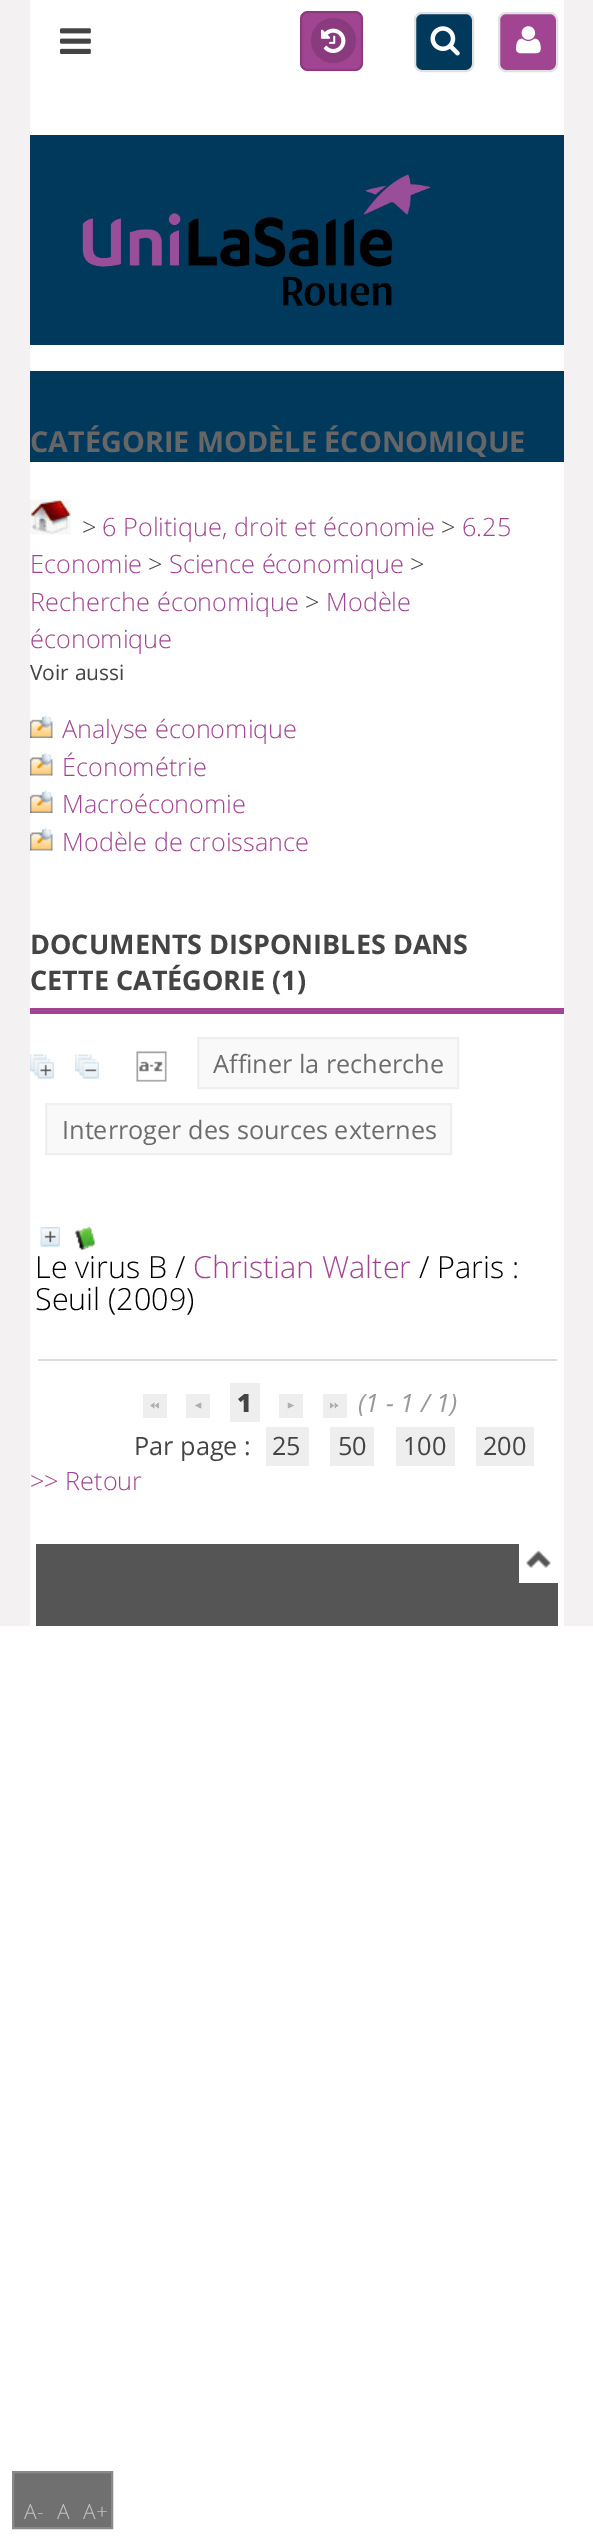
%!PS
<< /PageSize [593 2536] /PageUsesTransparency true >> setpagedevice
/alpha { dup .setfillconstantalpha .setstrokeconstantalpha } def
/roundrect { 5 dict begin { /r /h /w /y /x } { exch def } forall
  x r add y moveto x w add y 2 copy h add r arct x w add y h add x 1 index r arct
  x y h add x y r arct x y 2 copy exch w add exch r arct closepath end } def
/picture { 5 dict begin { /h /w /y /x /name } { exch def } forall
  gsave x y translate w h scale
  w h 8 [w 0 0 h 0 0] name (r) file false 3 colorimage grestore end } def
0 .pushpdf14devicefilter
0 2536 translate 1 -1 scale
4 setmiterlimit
1 setgray
0 0 593 2536 rectfill
0.953 0.945 0.949 setrgbcolor
0 0 593 1626 rectfill
1 setgray
30 462 534 1164 rectfill
30 0 534 371 rectfill
(img1.rgb) 60 28 31 26 picture
0 0.224 0.361 setrgbcolor
415 13 58 58 7 roundrect gsave fill grestore
0.882 setgray
2 setlinewidth
stroke
(img2.rgb) 430 26 30 30 picture
0.631 0.271 0.576 setrgbcolor
499 13 58 58 7 roundrect gsave fill grestore
0.882 setgray
stroke
(img3.rgb) 516 26 25 28 picture
0 0.224 0.361 setrgbcolor
30 135 534 210 rectfill
(img4.rgb) 82 174 349 132 picture
30 371 534 91 rectfill
/OpenSans-Bold [28.8 0 0 -28.8 0 0] selectfont
0.4 setgray
30 452 moveto (CATÉGORIE MODÈLE ÉCONOMIQUE) show
(img5.rgb) 30 499 42 36 picture
/OpenSans-Light [25.25 0 0 -25.25 0 0] selectfont
0.267 setgray
82 536 moveto (>) show
0.631 0.271 0.576 setrgbcolor
102 536 moveto (6 Politique, droit et économie) show
0.267 setgray
441 536 moveto (>) show
0.631 0.271 0.576 setrgbcolor
462 536 moveto (6.25) show
30 573 moveto (Economie) show
0.267 setgray
148 573 moveto (>) show
0.631 0.271 0.576 setrgbcolor
169 573 moveto (Science économique) show
0.267 setgray
410 573 moveto (>) show
0.631 0.271 0.576 setrgbcolor
30 611 moveto (Recherche économique) show
0.267 setgray
305 611 moveto (>) show
0.631 0.271 0.576 setrgbcolor
326 611 moveto (Modèle) show
30 648 moveto (économique) show
/OpenSans-Regular [21 0 0 -21 0 0] selectfont
0.267 setgray
30 680 moveto (Voir aussi) show
(img6.rgb) 30 715 23 23 picture
/OpenSans-Light [25.25 0 0 -25.25 0 0] selectfont
0.631 0.271 0.576 setrgbcolor
62 738 moveto (Analyse économique) show
(img7.rgb) 30 753 23 23 picture
62 776 moveto (Économétrie) show
(img6.rgb) 30 790 23 23 picture
62 813 moveto (Macroéconomie) show
(img7.rgb) 30 828 23 23 picture
62 851 moveto (Modèle de croissance) show
30 1008 534 6 rectfill
/OpenSans-Bold [27 0 0 -27 0 0] selectfont
0.267 setgray
30 954 moveto (DOCUMENTS DISPONIBLES DANS) show
30 990 moveto (CETTE CATÉGORIE \(1\)) show
(img8.rgb) 30 1054 24 25 picture
(img9.rgb) 75 1054 24 25 picture
(img10.rgb) 136 1051 31 31 picture
0.976 setgray
newpath 198 1038 moveto 458 1038 lineto 458 1088 lineto 198 1088 lineto closepath gsave fill grestore
0.937 setgray
stroke
/OpenSans-Regular [25.25 0 0 -25.25 0 0] selectfont
0.424 setgray
213 1073 moveto (Affiner la recherche) show
0.976 setgray
newpath 46 1104 moveto 451 1104 lineto 451 1154 lineto 46 1154 lineto closepath gsave fill grestore
0.937 setgray
stroke
0.424 setgray
62 1139 moveto (Interroger des sources externes) show
(img11.rgb) 40 1227 20 20 picture
(img12.rgb) 74 1227 21 23 picture
/OpenSans-Light [30.5 0 0 -30.5 0 0] selectfont
0 setgray
35 1278 moveto (Le virus B /) show
0.631 0.271 0.576 setrgbcolor
193 1278 moveto (Christian Walter) show
0 setgray
419 1278 moveto (/ Paris :) show
35 1310 moveto (Seuil \(2009\)) show
0.867 setgray
38 1359 519 2 rectfill
0.933 setgray
143 1394 24 24 rectfill
(img13.rgb) 150 1402 9 7 picture
186 1394 24 24 rectfill
(img14.rgb) 195 1402 7 7 picture
230 1383 30 39 rectfill
/OpenSans-ExtraBold [25.25 0 0 -25.25 0 0] selectfont
0.267 setgray
237 1412 moveto (1) show
0.933 setgray
279 1394 24 24 rectfill
(img15.rgb) 287 1402 7 7 picture
323 1394 24 24 rectfill
(img16.rgb) 330 1402 9 7 picture
/OpenSans-Italic [25.25 0 0 -25.25 0 0] selectfont
0.6 setgray
358 1412 moveto (\(1 - 1 / 1\)) show
/OpenSans-Regular [25.25 0 0 -25.25 0 0] selectfont
0.267 setgray
134 1455 moveto (Par page :) show
0.933 setgray
266 1427 43 39 rectfill
0.267 setgray
272 1455 moveto (25) show
0.933 setgray
330 1427 44 39 rectfill
0.267 setgray
338 1455 moveto (50) show
0.933 setgray
396 1427 59 39 rectfill
0.267 setgray
403 1455 moveto (100) show
0.933 setgray
476 1427 58 39 rectfill
0.267 setgray
483 1455 moveto (200) show
/OpenSans-Light [25.25 0 0 -25.25 0 0] selectfont
0.631 0.271 0.576 setrgbcolor
30 1490 moveto (>> Retour) show
0.333 setgray
36 1544 522 82 rectfill
1 setgray
519 1544 39 39 rectfill
(img17.rgb) 526 1550 25 18 picture
0.631 0.271 0.576 setrgbcolor
300 11 63 60 8 roundrect fill
0.14 alpha
0 setgray
301 12 61 58 7 roundrect stroke
1 alpha
0.537 0.231 0.49 setrgbcolor
newpath 333.5 40.5 22.5 0 360 arc closepath fill
(img18.rgb) 321 28 25 25 picture
0.439 setgray
newpath 13 2472 moveto 112 2472 lineto 112 2528 lineto 13 2528 lineto closepath gsave fill grestore
0.541 setgray
stroke
/OpenSans-Light [21 0 0 -21 0 0] selectfont
0.769 setgray
24 2519 moveto (A-) show
57 2519 moveto (A) show
83 2519 moveto (A+) show
.poppdf14devicefilter showpage
